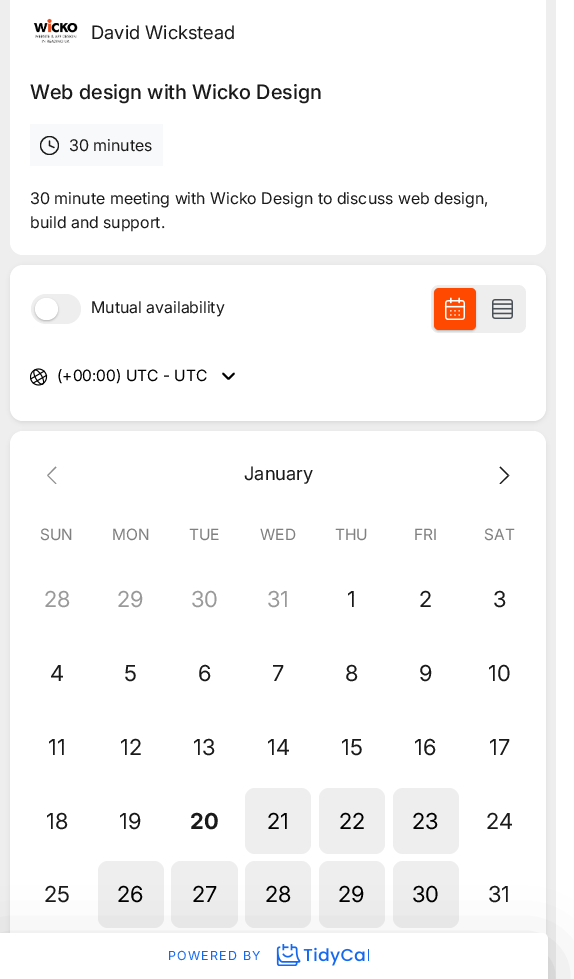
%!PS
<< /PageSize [574 979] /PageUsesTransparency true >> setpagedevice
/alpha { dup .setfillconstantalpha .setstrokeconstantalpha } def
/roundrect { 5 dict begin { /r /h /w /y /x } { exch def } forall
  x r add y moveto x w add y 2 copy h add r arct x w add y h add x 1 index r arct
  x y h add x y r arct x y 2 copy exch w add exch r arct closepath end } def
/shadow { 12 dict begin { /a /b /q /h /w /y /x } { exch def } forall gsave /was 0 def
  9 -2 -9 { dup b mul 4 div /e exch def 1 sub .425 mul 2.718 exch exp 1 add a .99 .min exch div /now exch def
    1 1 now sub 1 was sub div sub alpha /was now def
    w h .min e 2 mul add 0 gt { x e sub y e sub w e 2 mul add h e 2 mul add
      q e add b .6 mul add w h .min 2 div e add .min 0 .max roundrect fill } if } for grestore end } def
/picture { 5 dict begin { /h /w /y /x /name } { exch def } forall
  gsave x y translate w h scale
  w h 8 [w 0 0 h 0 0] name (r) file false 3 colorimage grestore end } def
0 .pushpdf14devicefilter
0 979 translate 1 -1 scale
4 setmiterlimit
1 setgray
0 0 574 979 rectfill
0.933 0.933 0.937 setrgbcolor
0 0 556 979 rectfill
1 setgray
10 -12 536 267 13 roundrect fill
(img1.rgb) 33 18 45 25 picture
/Inter-Regular [18.5 0 0 -18.5 0 0] selectfont
0.102 setgray
91 39 moveto (David Wickstead) show
/Inter-Medium [20 0 0 -20 0 0] selectfont
30 99 moveto (Web design with Wicko Design) show
0.973 0.976 0.98 setrgbcolor
30 124 133 42 rectfill
gsave
40 136 19 19 rectclip
0.098 setgray
1.2 setlinewidth
newpath 49.5 145.5 9 0 360 arc closepath stroke
grestore
0.098 setgray
1.2 setlinewidth
1 setlinecap
1 setlinejoin
newpath 49.5 141 moveto 49.5 145.5 lineto 54 147.5 lineto stroke
/Inter-Regular [16.1 0 0 -16.1 0 0] selectfont
0.102 setgray
69 151 moveto (30 minutes) show
30 204 moveto (30 minute meeting with Wicko Design to discuss web design,) show
30 228 moveto (build and support.) show
0 setgray
10 266 536 157 13 2 0.07 shadow
1 setgray
10 265 536 156 13 roundrect fill
0.933 0.933 0.937 setrgbcolor
31 294 50 30 15 roundrect fill
0 setgray
35 299 23 22 11 1 0.25 shadow
1 setgray
35 298 23 22 11 roundrect fill
0.102 setgray
91 313 moveto (Mutual availability) show
0.933 0.933 0.937 setrgbcolor
431 285 95 48 8 roundrect fill
0 setgray
434 289 42 42 5 1 0.25 shadow
1 0.282 0 setrgbcolor
434 288 42 42 5 roundrect fill
(img2.rgb) 444 297 22 23 picture
(img3.rgb) 492 299 21 20 picture
(img4.rgb) 30 368 18 18 picture
/Inter-Regular [15.6 0 0 -15.6 0 0] selectfont
0 setgray
57 381 moveto (\(+00:00\) UTC - UTC) show
1.8 setlinewidth
newpath 223 373.5 moveto 228.5 379 lineto 234 373.5 lineto stroke
10 433 536 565 13 2 0.07 shadow
1 setgray
10 431 536 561 13 roundrect fill
0.553 setgray
newpath 55.5 484 moveto 47 475.5 lineto 48.5 475.5 lineto 56.5 483.5 lineto closepath fill
newpath 47 475.5 moveto 55.5 466.5 lineto 56.5 467.5 lineto 48.5 475.5 lineto closepath fill
/Inter-Regular [18.5 0 0 -18.5 0 0] selectfont
0.102 setgray
244 480 moveto (January) show
newpath 500.5 466.5 moveto 509.5 475.5 lineto 507.5 475.5 lineto 499.5 467.5 lineto closepath fill
newpath 509.5 475.5 moveto 500.5 484 lineto 499.5 483.5 lineto 507.5 475.5 lineto closepath fill
/Inter-Regular [15.6 0 0 -15.6 0 0] selectfont
0.502 setgray
40 540 moveto (SUN) show
112 540 moveto (MON) show
189 540 moveto (TUE) show
260 540 moveto (WED) show
335 540 moveto (THU) show
414 540 moveto (FRI) show
484 540 moveto (SAT) show
/Inter-Regular [22 0 0 -22 0 0] selectfont
0.6 setgray
44 607 moveto (28) show
117 607 moveto (29) show
191 607 moveto (30) show
267 607 moveto (31) show
0.102 setgray
347 607 moveto (1) show
419 607 moveto (2) show
493 607 moveto (3) show
50 681 moveto (4) show
124 681 moveto (5) show
198 681 moveto (6) show
272 681 moveto (7) show
345 681 moveto (8) show
419 681 moveto (9) show
488 681 moveto (10) show
48 755 moveto (11) show
120 755 moveto (12) show
193 755 moveto (13) show
267 755 moveto (14) show
341 755 moveto (15) show
414 755 moveto (16) show
489 755 moveto (17) show
46 829 moveto (18) show
119 829 moveto (19) show
/Inter-Bold [22 0 0 -22 0 0] selectfont
190 829 moveto (20) show
0.933 0.933 0.937 setrgbcolor
245 788 66 66 10 roundrect fill
/Inter-Regular [22 0 0 -22 0 0] selectfont
0 setgray
267 829 moveto (21) show
0.933 0.933 0.937 setrgbcolor
319 788 66 66 10 roundrect fill
0 setgray
339 829 moveto (22) show
0.933 0.933 0.937 setrgbcolor
393 788 66 66 10 roundrect fill
0 setgray
412 829 moveto (23) show
0.102 setgray
486 829 moveto (24) show
44 902 moveto (25) show
0.933 0.933 0.937 setrgbcolor
98 861 66 67 10 roundrect fill
0 setgray
117 902 moveto (26) show
0.933 0.933 0.937 setrgbcolor
171 861 67 67 10 roundrect fill
0 setgray
192 902 moveto (27) show
0.933 0.933 0.937 setrgbcolor
245 861 66 67 10 roundrect fill
0 setgray
265 902 moveto (28) show
0.933 0.933 0.937 setrgbcolor
319 861 66 67 10 roundrect fill
0 setgray
338 902 moveto (29) show
0.933 0.933 0.937 setrgbcolor
393 861 66 67 10 roundrect fill
0 setgray
412 902 moveto (30) show
0.102 setgray
488 902 moveto (31) show
0 setgray
-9 953 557 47 6 30 0.18 shadow
1 setgray
newpath 0 933 moveto 542 933 lineto 545.5 933 548 935.5 548 939 curveto 548 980 lineto -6 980 lineto -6 939 lineto -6 935.5 -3.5 933 0 933 curveto closepath fill
/Inter-Regular [12.5 0 0 -12.5 0 0] selectfont
0.082 0.412 0.937 setrgbcolor
168 960 moveto 1.25 0 (POWERED BY) ashow
(img5.rgb) 276 944 93 22 picture
.poppdf14devicefilter showpage
